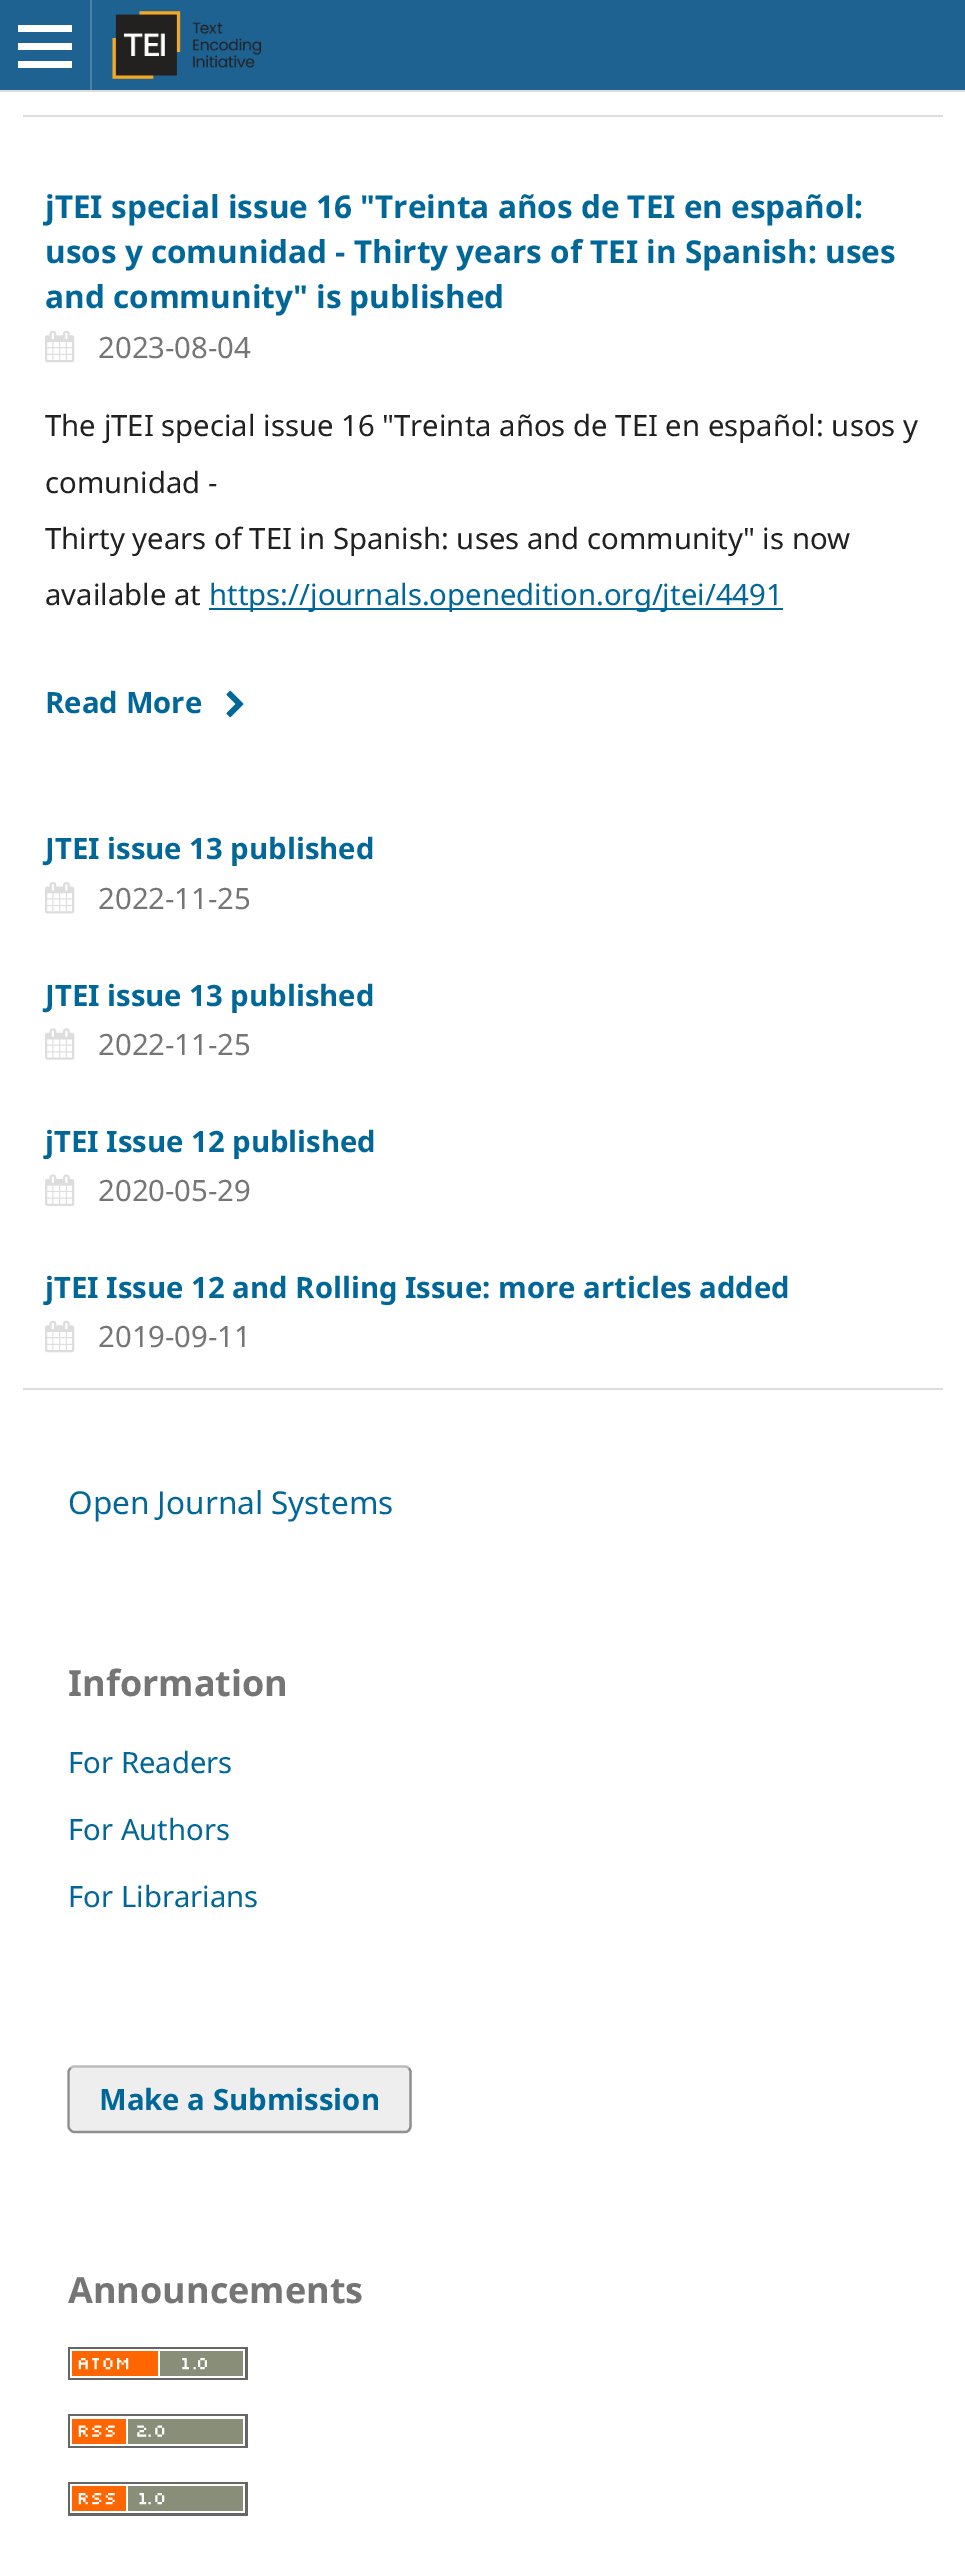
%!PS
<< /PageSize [965 2574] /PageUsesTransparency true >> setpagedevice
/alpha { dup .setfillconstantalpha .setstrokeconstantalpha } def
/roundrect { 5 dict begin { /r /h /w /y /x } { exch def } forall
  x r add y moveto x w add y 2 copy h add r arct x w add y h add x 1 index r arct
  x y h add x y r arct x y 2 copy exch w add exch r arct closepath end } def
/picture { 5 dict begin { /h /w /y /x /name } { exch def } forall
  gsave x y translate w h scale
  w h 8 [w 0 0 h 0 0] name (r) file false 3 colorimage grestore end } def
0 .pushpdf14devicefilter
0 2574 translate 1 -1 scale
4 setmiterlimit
1 setgray
0 0 965 2574 rectfill
0.118 0.384 0.573 setrgbcolor
0 0 965 90 rectfill
0.867 setgray
0 90 965 2 rectfill
0.294 0.506 0.659 setrgbcolor
90 0 2 90 rectfill
1 setgray
18 61 54 7 rectfill
18 25 54 7 rectfill
18 43 54 7 rectfill
(img1.rgb) 112 11 149 68 picture
0.867 setgray
23 115 920 2 rectfill
23 1388 920 2 rectfill
/NotoSans-Bold [31.5 0 0 -31.5 0 0] selectfont
0 0.404 0.596 setrgbcolor
45 218 moveto (jTEI special issue 16 "Treinta años de TEI en español:) show
45 263 moveto (usos y comunidad - Thirty years of TEI in Spanish: uses) show
45 308 moveto (and community" is published) show
(img2.rgb) 45 330 30 33 picture
/NotoSans-Regular [29.3 0 0 -29.3 0 0] selectfont
0.459 setgray
98 358 moveto (2023-08-04) show
0.129 setgray
45 436 moveto (The jTEI special issue 16 "Treinta años de TEI en español: usos y) show
45 493 moveto (comunidad -) show
45 549 moveto (Thirty years of TEI in Spanish: uses and community" is now) show
45 605 moveto (available at) show
0 0.404 0.596 setrgbcolor
209 608 574 2 rectfill
209 605 moveto (https://journals.openedition.org/jtei/4491) show
/NotoSans-Bold [29.3 0 0 -29.3 0 0] selectfont
45 713 moveto (Read More) show
(img3.rgb) 226 690 18 28 picture
45 859 moveto (JTEI issue 13 published) show
(img4.rgb) 45 882 30 32 picture
/NotoSans-Regular [29.3 0 0 -29.3 0 0] selectfont
0.459 setgray
98 909 moveto (2022-11-25) show
/NotoSans-Bold [29.3 0 0 -29.3 0 0] selectfont
0 0.404 0.596 setrgbcolor
45 1006 moveto (JTEI issue 13 published) show
(img5.rgb) 45 1028 30 32 picture
/NotoSans-Regular [29.3 0 0 -29.3 0 0] selectfont
0.459 setgray
98 1055 moveto (2022-11-25) show
/NotoSans-Bold [29.3 0 0 -29.3 0 0] selectfont
0 0.404 0.596 setrgbcolor
45 1152 moveto (jTEI Issue 12 published) show
(img6.rgb) 45 1174 30 32 picture
/NotoSans-Regular [29.3 0 0 -29.3 0 0] selectfont
0.459 setgray
98 1201 moveto (2020-05-29) show
/NotoSans-Bold [29.3 0 0 -29.3 0 0] selectfont
0 0.404 0.596 setrgbcolor
45 1298 moveto (jTEI Issue 12 and Rolling Issue: more articles added) show
(img2.rgb) 45 1320 30 33 picture
/NotoSans-Regular [29.3 0 0 -29.3 0 0] selectfont
0.459 setgray
98 1347 moveto (2019-09-11) show
/NotoSans-Regular [31.5 0 0 -31.5 0 0] selectfont
0 0.404 0.596 setrgbcolor
68 1514 moveto (Open Journal Systems) show
/NotoSans-Bold [36 0 0 -36 0 0] selectfont
0.459 setgray
68 1696 moveto (Information) show
/NotoSans-Regular [29.3 0 0 -29.3 0 0] selectfont
0 0.404 0.596 setrgbcolor
68 1773 moveto (For Readers) show
68 1840 moveto (For Authors) show
68 1907 moveto (For Librarians) show
0.933 setgray
68 2066 344 67 7 roundrect fill
0.733 setgray
2.2 setlinewidth
newpath 70.5 2068.5 moveto 71.5 2067 73 2066.5 74 2066.5 curveto 405 2066.5 lineto 406.5 2066.5 408 2067 409 2068.5 curveto stroke
0.4 alpha
0 setgray
newpath 409 2068.5 moveto 410 2069.5 410.5 2071 410.5 2072 curveto 410.5 2126 lineto 410.5 2127.5 410 2129 409 2130 curveto 408 2131.5 406.5 2132 405 2132 curveto 74 2132 lineto 73 2132 71.5 2131.5 70.5 2130 curveto 69 2129 68.5 2127.5 68.5 2126 curveto 68.5 2072 lineto 68.5 2071 69 2069.5 70.5 2068.5 curveto stroke
/NotoSans-Bold [29.3 0 0 -29.3 0 0] selectfont
1 alpha
0 0.404 0.596 setrgbcolor
99 2110 moveto (Make a Submission) show
/NotoSans-Bold [36 0 0 -36 0 0] selectfont
0.459 setgray
68 2303 moveto (Announcements) show
(img7.rgb) 68 2347 180 33 picture
(img8.rgb) 68 2414 180 34 picture
(img9.rgb) 68 2482 180 34 picture
.poppdf14devicefilter showpage
